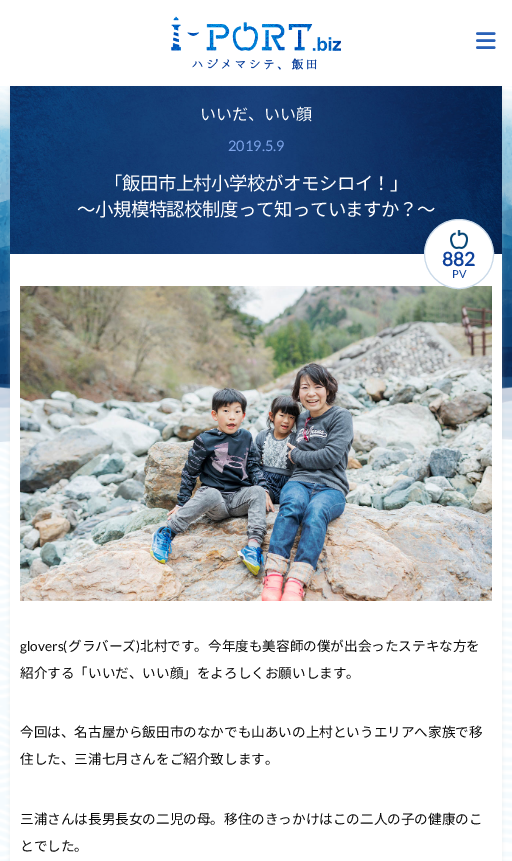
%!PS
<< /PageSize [512 861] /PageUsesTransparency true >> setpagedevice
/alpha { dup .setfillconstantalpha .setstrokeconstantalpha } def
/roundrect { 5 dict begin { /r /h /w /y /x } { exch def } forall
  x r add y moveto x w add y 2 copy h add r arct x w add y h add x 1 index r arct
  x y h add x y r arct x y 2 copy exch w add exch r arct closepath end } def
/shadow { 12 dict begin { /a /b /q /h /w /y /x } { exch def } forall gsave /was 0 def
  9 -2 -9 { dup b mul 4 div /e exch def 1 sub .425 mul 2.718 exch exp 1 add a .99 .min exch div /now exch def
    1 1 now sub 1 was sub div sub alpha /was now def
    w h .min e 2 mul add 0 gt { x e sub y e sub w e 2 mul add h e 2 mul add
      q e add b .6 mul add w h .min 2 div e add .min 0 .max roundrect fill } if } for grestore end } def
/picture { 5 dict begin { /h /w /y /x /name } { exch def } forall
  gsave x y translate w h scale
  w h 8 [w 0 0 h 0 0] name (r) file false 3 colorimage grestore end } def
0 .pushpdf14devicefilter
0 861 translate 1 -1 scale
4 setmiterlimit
1 setgray
0 0 512 861 rectfill
(img1.rgb) 0 86 512 775 picture
(img2.rgb) 171 16 170 54 picture
(img3.rgb) 476 32 20 17 picture
(img4.rgb) 0 89 512 353 picture
0.753 setgray
10 88 492 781 0 2.5 0.27 shadow
1 setgray
10 254 492 607 rectfill
(img5.rgb) 10 86 492 168 picture
/NotoSansJP-Regular [16 0 0 -16 0 0] selectfont
200 120 moveto (いいだ、いい顔) show
/Lato-Regular [14.5 0 0 -14.5 0 0] selectfont
0.49 0.643 0.91 setrgbcolor
228 151 moveto (2019.5.9) show
/NotoSansJP-Regular [18.4 0 0 -18.4 0 0] selectfont
1 setgray
104 190 moveto -0.5 0 (「飯田市上村小学校がオモシロイ！」) ashow
77 216 moveto -0.5 0 (～小規模特認校制度って知っていますか？～) ashow
(img7.rgb) 20 286 472 315 picture
newpath 459 254 34.5 0 360 arc closepath gsave fill grestore
0.788 0.851 0.91 setrgbcolor
stroke
(img6.rgb) 450 230 18 19 picture
/Lato-Bold [19 0 0 -19 0 0] selectfont
0.055 0.255 0.608 setrgbcolor
442 266 moveto (882) show
/Lato-Regular [11 0 0 -11 0 0] selectfont
452 278 moveto (PV) show
/Lato-Regular [13.6 0 0 -13.6 0 0] selectfont
0.039 setgray
20 651 moveto (glovers\() show
/NotoSansJP-Regular [13.6 0 0 -13.6 0 0] selectfont
68 651 moveto (グラバーズ) show
/Lato-Regular [13.6 0 0 -13.6 0 0] selectfont
136 651 moveto (\)) show
/NotoSansJP-Regular [13.6 0 0 -13.6 0 0] selectfont
140 651 moveto (北村です。今年度も美容師の僕が出会ったステキな方を) show
20 678 moveto (紹介する「いいだ、いい顔」をよろしくお願いします。) show
20 737 moveto (今回は、名古屋から飯田市のなかでも山あいの上村というエリアへ家族で移) show
20 764 moveto (住した、三浦七月さんをご紹介致します。) show
20 824 moveto (三浦さんは長男長女の二児の母。移住のきっかけはこの二人の子の健康のこ) show
20 851 moveto (とでした。) show
.poppdf14devicefilter showpage
